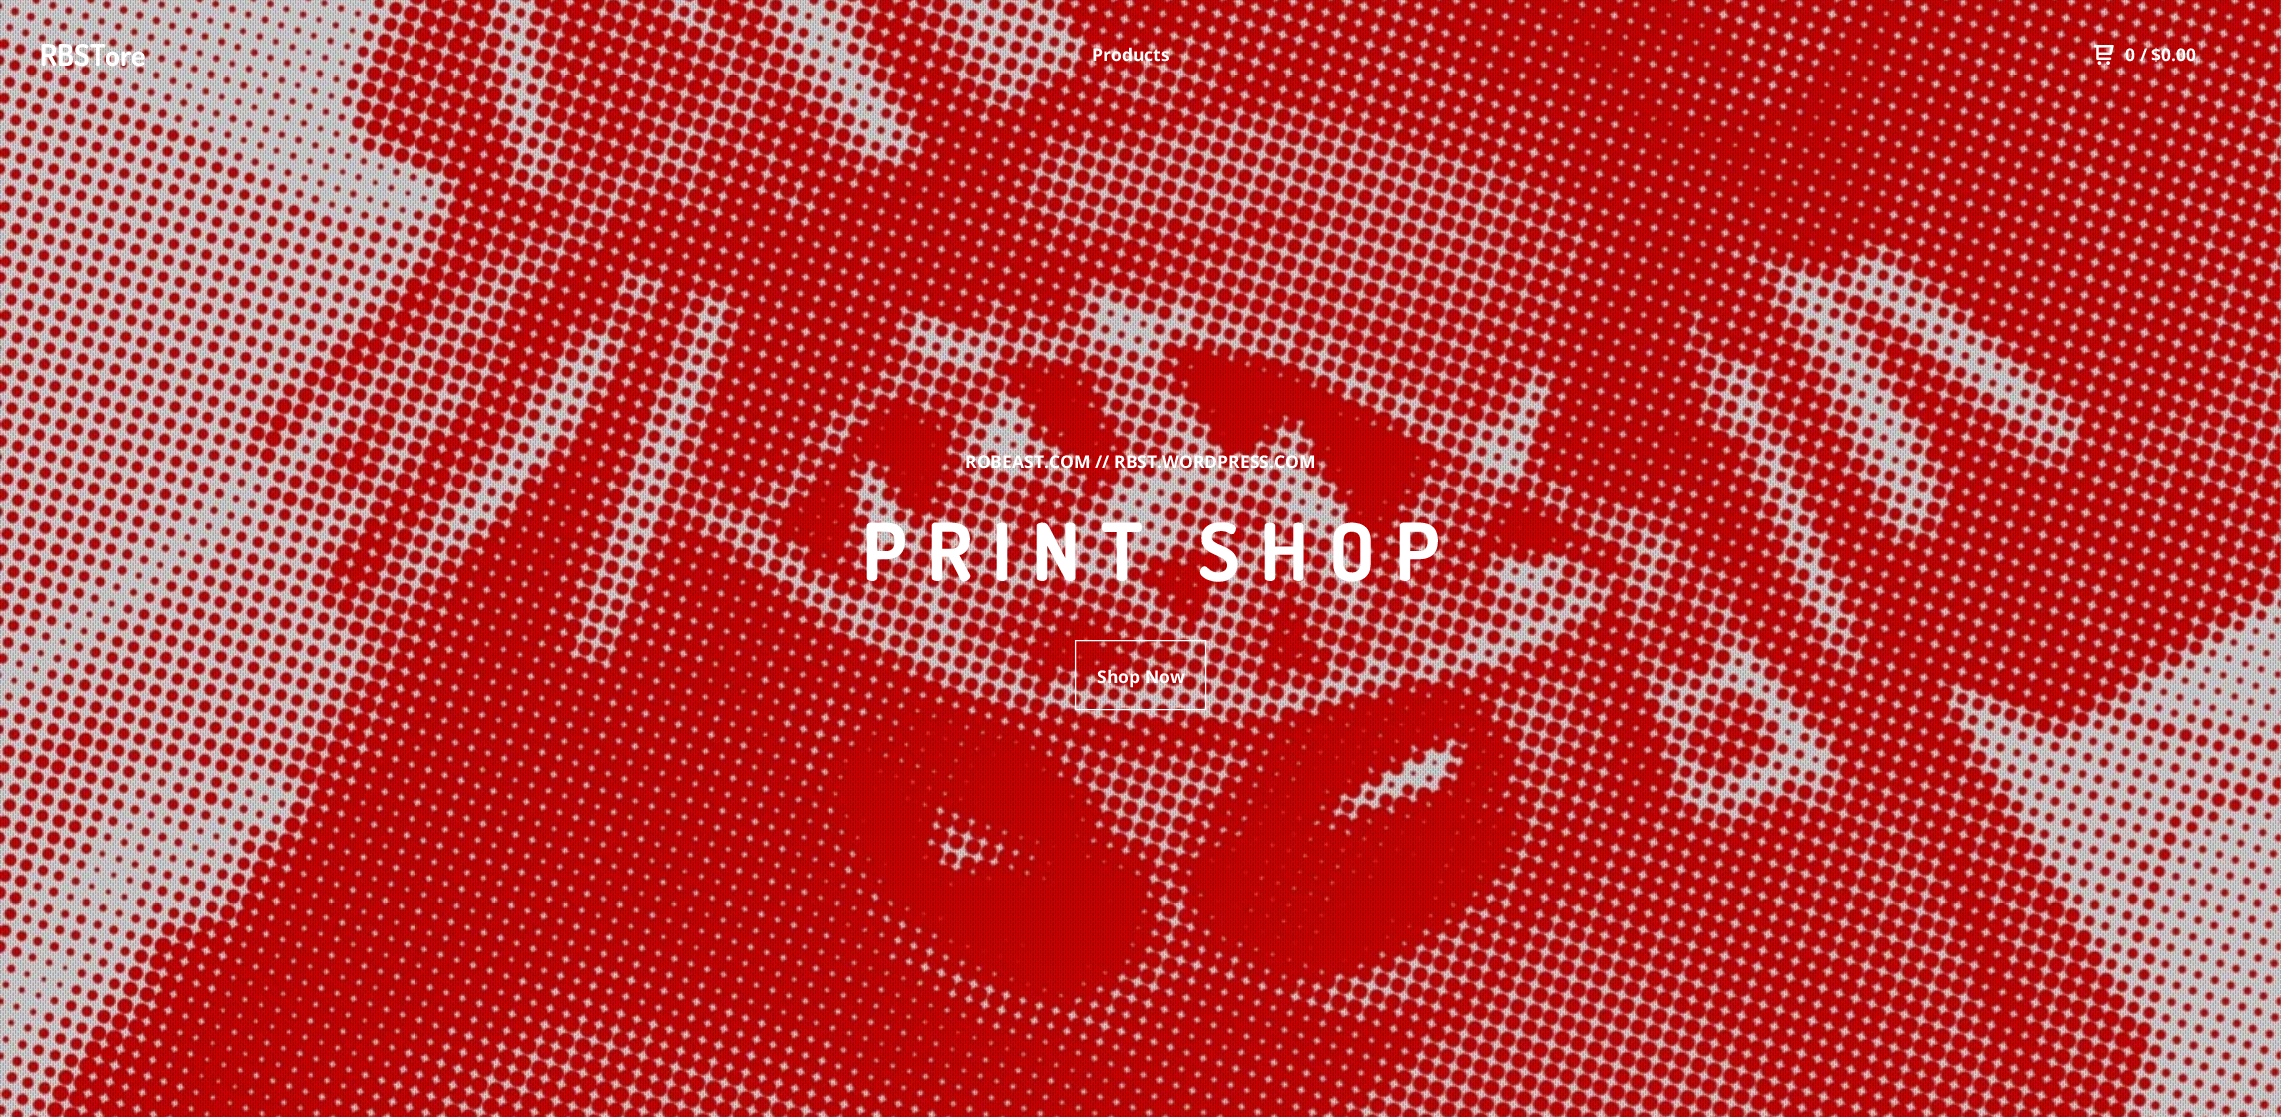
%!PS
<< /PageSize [2281 1117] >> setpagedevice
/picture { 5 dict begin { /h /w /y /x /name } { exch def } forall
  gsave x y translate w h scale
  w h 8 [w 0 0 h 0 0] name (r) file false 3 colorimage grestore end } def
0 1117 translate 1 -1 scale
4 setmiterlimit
1 setgray
0 0 2281 1117 rectfill
(img2.rgb) 0 0 2281 1117 picture
(img3.rgb) 0 0 2281 1117 picture
/Dosis-Bold [30 0 0 -30 0 0] selectfont
40 66 moveto (RBSTore) show
/OpenSans-Bold [17.5 0 0 -17.5 0 0] selectfont
1092 61 moveto (Products) show
(img1.rgb) 2094 45 20 20 picture
2125 61 moveto (0 / $0.00) show
965 468 moveto (ROBEAST.COM // RBST.WORDPRESS.COM) show
/Dosis-Bold [80 0 0 -80 0 0] selectfont
862 581 moveto 20 0 (PRINT SHOP) ashow
1075.5 640.5 130 69 rectstroke
/OpenSans-Bold [17.5 0 0 -17.5 0 0] selectfont
1097 683 moveto (Shop Now) show
showpage
